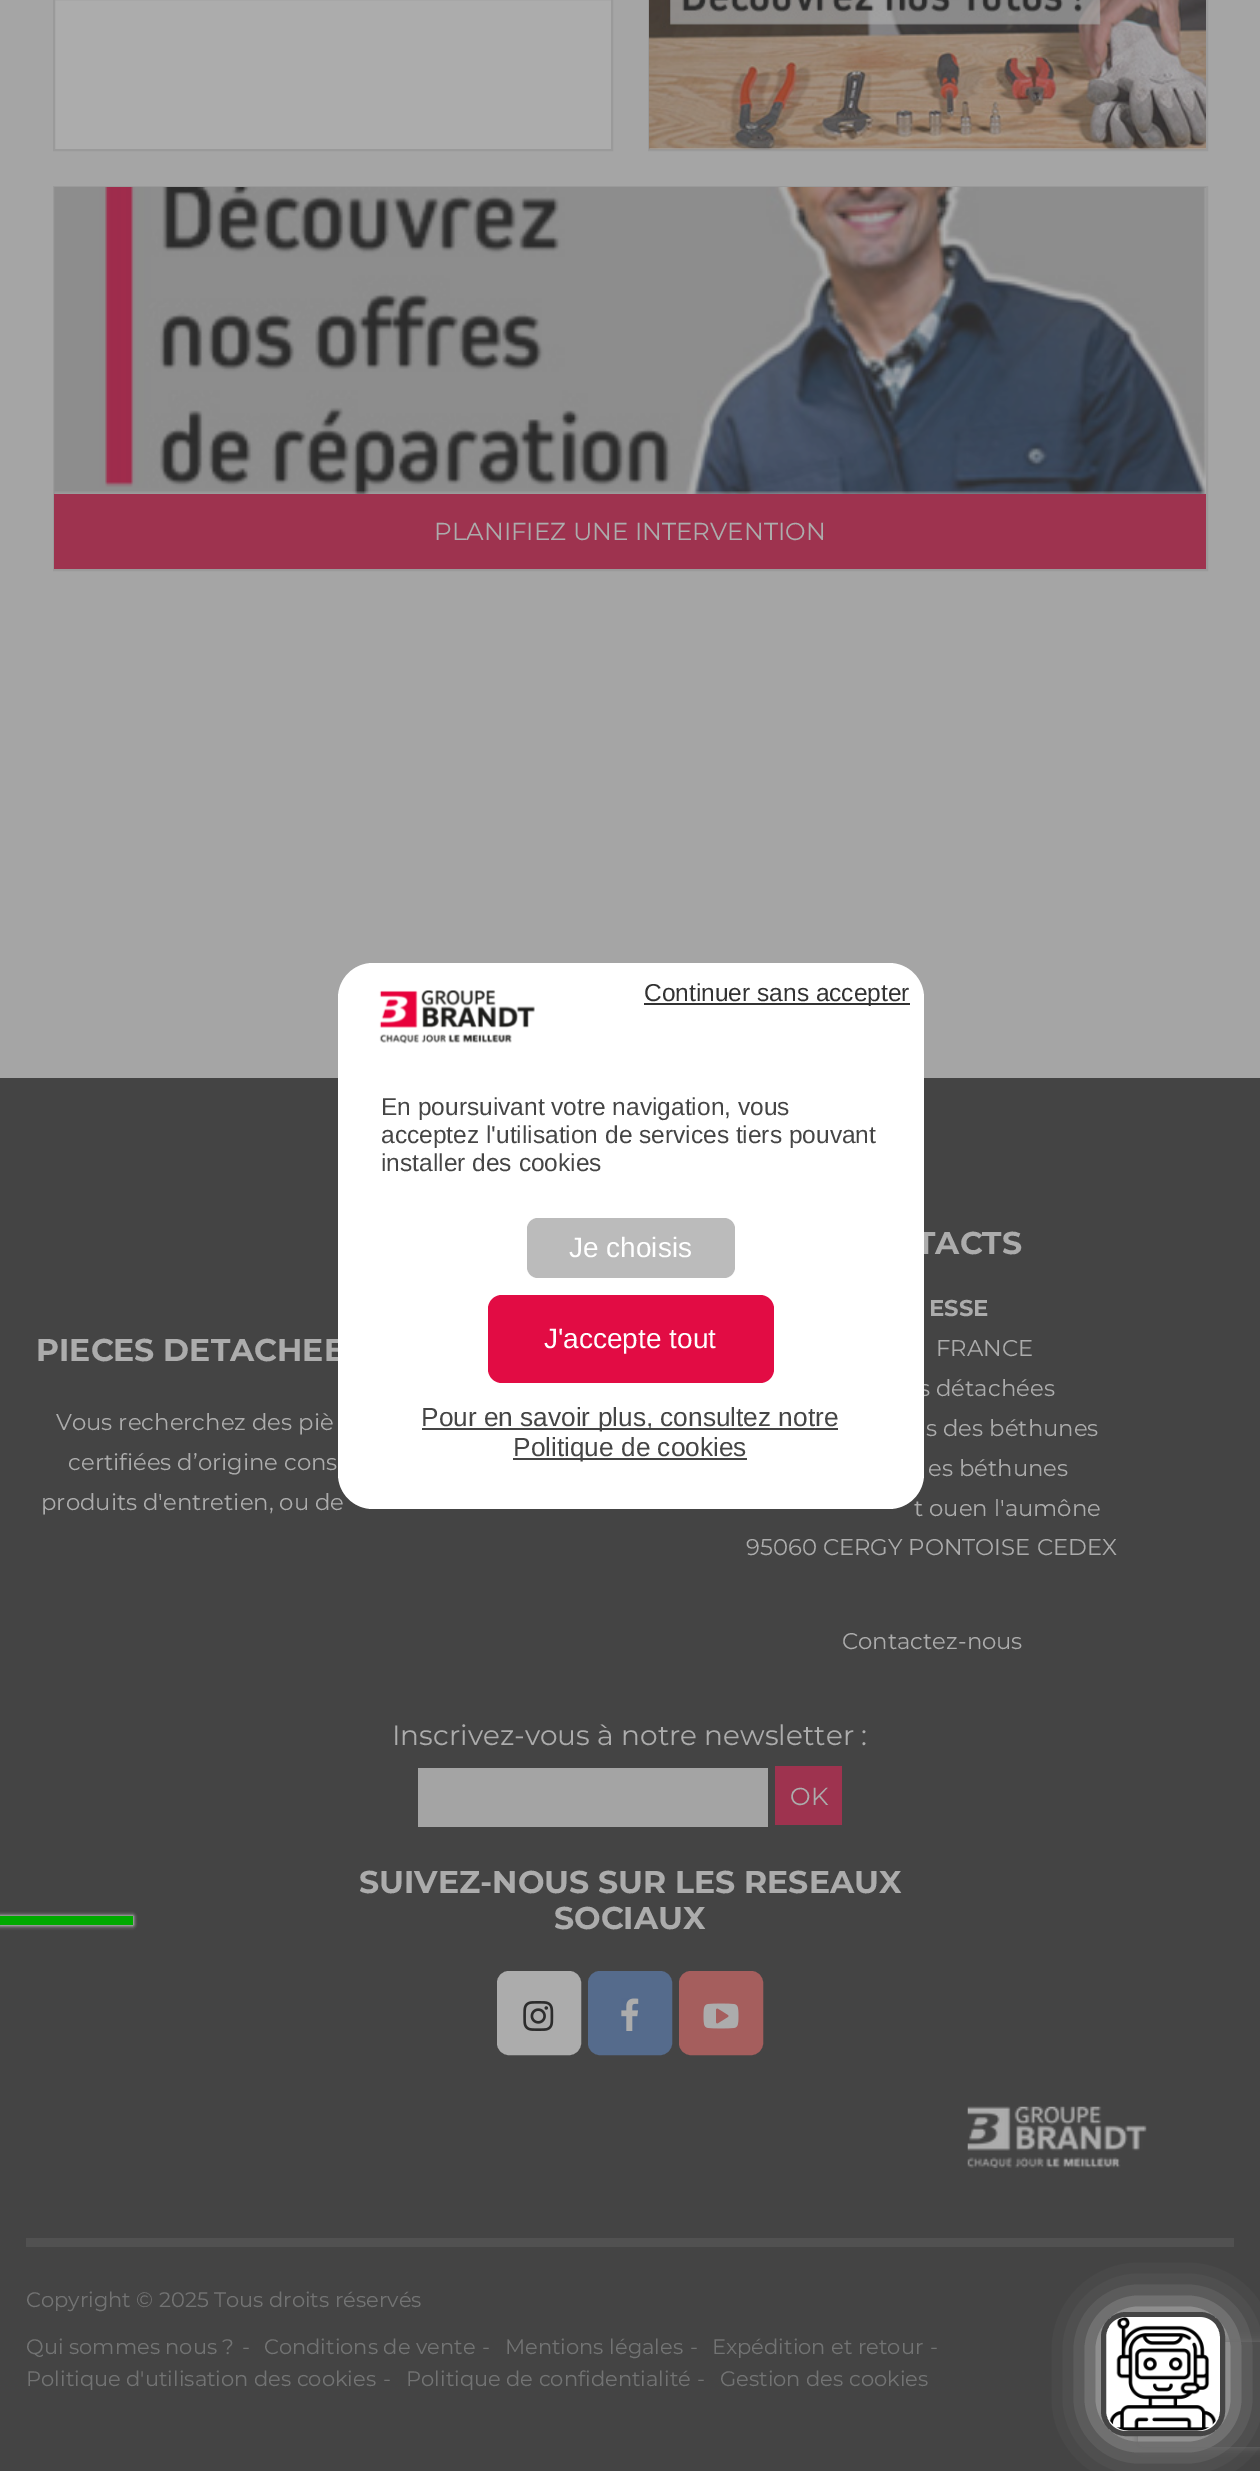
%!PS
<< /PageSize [1260 2471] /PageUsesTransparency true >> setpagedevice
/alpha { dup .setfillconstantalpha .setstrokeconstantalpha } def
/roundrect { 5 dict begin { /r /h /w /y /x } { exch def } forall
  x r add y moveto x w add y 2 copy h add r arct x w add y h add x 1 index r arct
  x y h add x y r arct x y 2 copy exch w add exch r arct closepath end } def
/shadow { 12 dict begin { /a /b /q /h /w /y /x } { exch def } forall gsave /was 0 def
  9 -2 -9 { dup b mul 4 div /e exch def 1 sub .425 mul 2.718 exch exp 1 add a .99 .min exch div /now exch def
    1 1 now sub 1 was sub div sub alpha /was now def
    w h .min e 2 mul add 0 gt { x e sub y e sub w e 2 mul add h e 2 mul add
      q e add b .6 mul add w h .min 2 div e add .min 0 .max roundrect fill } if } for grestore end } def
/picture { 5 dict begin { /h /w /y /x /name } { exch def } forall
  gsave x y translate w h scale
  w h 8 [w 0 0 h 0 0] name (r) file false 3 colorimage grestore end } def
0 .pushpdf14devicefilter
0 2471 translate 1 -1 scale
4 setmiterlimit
0.647 setgray
0 0 1260 2471 rectfill
0.675 setgray
newpath 54 -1 moveto 612 -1 lineto 612 150 lineto 54 150 lineto closepath gsave fill grestore
0.604 setgray
2 setlinewidth
stroke
0.675 setgray
650 148 556 1 rectfill
0.604 setgray
649 -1 558 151 rectstroke
(img1.rgb) 649 0 557 150 picture
0.675 setgray
55 188 1151 306 rectfill
0.604 setgray
54 187 1153 383 rectstroke
(img2.rgb) 54 187 1152 307 picture
0.62 0.2 0.31 setrgbcolor
54 494 1152 75 rectfill
/Montserrat-Regular [24.5 0 0 -24.5 0 0] selectfont
0.675 setgray
434 540 moveto (PLANIFIEZ UNE INTERVENTION) show
0.267 setgray
0 1078 1260 1393 rectfill
/Montserrat-Bold [31.5 0 0 -31.5 0 0] selectfont
0.675 setgray
36 1361 moveto (PIECES DETACHEE) show
/Montserrat-Regular [22.75 0 0 -22.75 0 0] selectfont
56 1430 moveto (Vous recherchez des piè) show
68 1470 moveto (certifiées d’origine cons) show
41 1510 moveto (produits d'entretien, ou de) show
/Montserrat-Bold [31.5 0 0 -31.5 0 0] selectfont
916 1254 moveto (TACTS) show
/Montserrat-Bold [22.75 0 0 -22.75 0 0] selectfont
929 1316 moveto (ESSE) show
/Montserrat-Regular [22.75 0 0 -22.75 0 0] selectfont
936 1356 moveto (FRANCE) show
919 1396 moveto (s détachées) show
926 1436 moveto (s des béthunes) show
928 1476 moveto (es béthunes) show
914 1516 moveto (t ouen l'aumône) show
746 1555 moveto (95060 CERGY PONTOISE CEDEX) show
842 1649 moveto (Contactez-nous) show
/Montserrat-Regular [28 0 0 -28 0 0] selectfont
392 1745 moveto (Inscrivez-vous à notre newsletter :) show
0.643 setgray
418 1768 350 59 rectfill
0.62 0.2 0.31 setrgbcolor
775 1766 67 59 rectfill
/Montserrat-Regular [24.5 0 0 -24.5 0 0] selectfont
0.675 setgray
790 1805 moveto (OK) show
/Montserrat-Bold [31.5 0 0 -31.5 0 0] selectfont
359 1893 moveto (SUIVEZ-NOUS SUR LES RESEAUX) show
554 1929 moveto (SOCIAUX) show
499 1973 80 80 10 roundrect gsave fill grestore
4 setlinewidth
stroke
(img3.rgb) 523 2001 31 30 picture
0.333 0.42 0.549 setrgbcolor
590 1973 80 80 10 roundrect gsave fill grestore
stroke
(img4.rgb) 621 1998 18 33 picture
0.647 0.369 0.365 setrgbcolor
681 1973 80 80 10 roundrect gsave fill grestore
stroke
(img5.rgb) 703 2003 36 26 picture
(img6.rgb) 967 2106 180 62 picture
0.318 setgray
26 2238 1208 9 rectfill
/Montserrat-Regular [21 0 0 -21 0 0] selectfont
0.447 0.451 0.451 setrgbcolor
26 2307 moveto (Copyright © 2025 Tous droits réservés) show
26 2354 moveto (Qui sommes nous ?) show
242 2354 moveto (-) show
264 2354 moveto (Conditions de vente) show
482 2354 moveto (-) show
505 2354 moveto (Mentions légales) show
690 2354 moveto (-) show
712 2354 moveto (Expédition et retour) show
930 2354 moveto (-) show
26 2386 moveto (Politique d'utilisation des cookies) show
383 2386 moveto (-) show
406 2386 moveto (Politique de confidentialité) show
697 2386 moveto (-) show
720 2386 moveto (Gestion des cookies) show
1 setgray
338 963 586 546 35 roundrect fill
0.2 setgray
644 1003 266 2 rectfill
/LiberationSans-Regular [24.5 0 0 -24.5 0 0] selectfont
644 1001 moveto (Continuer sans accepter) show
(img7.rgb) 379 990 156 54 picture
0.271 setgray
381 1115 moveto (En poursuivant votre navigation, vous) show
381 1143 moveto (acceptez l'utilisation de services tiers pouvant) show
381 1171 moveto (installer des cookies) show
0.733 setgray
527 1218 208 60 11 roundrect fill
/LiberationSans-Regular [28 0 0 -28 0 0] selectfont
1 setgray
569 1257 moveto (Je choisis) show
0.886 0.047 0.267 setrgbcolor
488 1295 286 88 14 roundrect fill
1 setgray
544 1348 moveto (J'accepte tout) show
0.271 setgray
422 1428 416 2 rectfill
/LiberationSans-Regular [26.25 0 0 -26.25 0 0] selectfont
421 1426 moveto (Pour en savoir plus, consultez notre) show
513 1458 234 2 rectfill
513 1456 moveto (Politique de cookies) show
0.333 setgray
0 1918 133 9 0 2 1 shadow
1 setgray
0 1916 133 9 0 2 1 shadow
0 0.667 0 setrgbcolor
0 1916 133 9 rectfill
0.855 setgray
1101 2312 124 124 25 22 1 shadow
gsave
newpath 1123 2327 moveto 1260 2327 lineto 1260 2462 lineto 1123 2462 lineto closepath 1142 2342 moveto 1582 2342 lineto 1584 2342 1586 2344 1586 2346 curveto 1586 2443 lineto 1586 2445 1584 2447 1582 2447 curveto 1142 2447 lineto 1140 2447 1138 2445 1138 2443 curveto 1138 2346 lineto 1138 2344 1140 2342 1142 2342 curveto closepath eoclip newpath
0.427 setgray
1138 2342 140 105 4 4.5 1 shadow
grestore
1 setgray
1103.5 2314.5 119 119 22.5 roundrect gsave fill grestore
0.271 setgray
5 setlinewidth
stroke
(img8.rgb) 1109 2317 107 114 picture
.poppdf14devicefilter showpage
